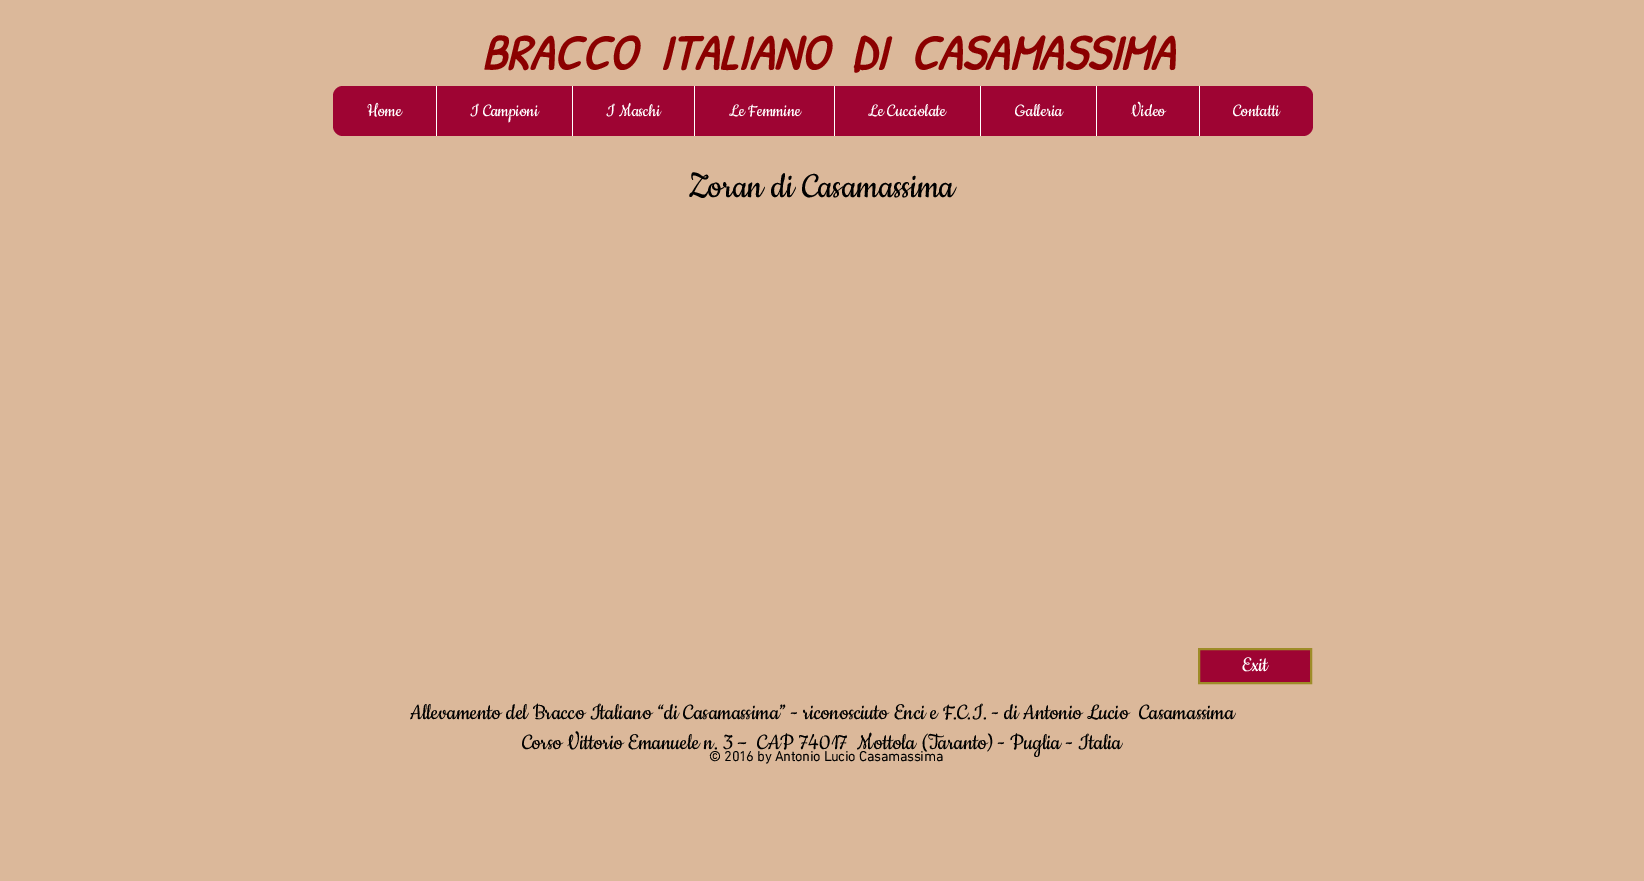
%!PS
<< /PageSize [1644 881] >> setpagedevice
/roundrect { 5 dict begin { /r /h /w /y /x } { exch def } forall
  x r add y moveto x w add y 2 copy h add r arct x w add y h add x 1 index r arct
  x y h add x y r arct x y 2 copy exch w add exch r arct closepath end } def
0 881 translate 1 -1 scale
4 setmiterlimit
0.859 0.722 0.604 setrgbcolor
0 0 1644 881 rectfill
/PatrickHand-BoldItalic [50 0 0 -50 0 0] selectfont
0.545 0 0 setrgbcolor
481 70 moveto (BRACCO  ITALIANO) show
851 70 moveto (DI  CASAMASSIMA) show
0.62 0.016 0.2 setrgbcolor
333 86 980 50 10 roundrect fill
/Cookie-Regular [20 0 0 -20 0 0] selectfont
1 setgray
367 116 moveto (Home) show
436 86 1 50 rectfill
470 116 moveto (I Campioni) show
572 86 1 50 rectfill
606 116 moveto (I Maschi) show
694 86 1 50 rectfill
729 116 moveto (Le Femmine) show
834 86 1 50 rectfill
868 116 moveto (Le Cucciolate) show
980 86 1 50 rectfill
1015 116 moveto (Galleria) show
1096 86 1 50 rectfill
1131 116 moveto (Video) show
1199 86 1 50 rectfill
1233 116 moveto (Contatti) show
/Cookie-Regular [40 0 0 -40 0 0] selectfont
0 setgray
688 197 moveto (Zoran di Casamassima) show
0.62 0.016 0.2 setrgbcolor
newpath 1199 649 moveto 1311 649 lineto 1311 683 lineto 1199 683 lineto closepath gsave fill grestore
0.62 0.549 0.157 setrgbcolor
2 setlinewidth
stroke
/Cookie-Regular [23 0 0 -23 0 0] selectfont
1 setgray
1242 671 moveto (Exit) show
/Cookie-Regular [25 0 0 -25 0 0] selectfont
0 setgray
410 719 moveto (Allevamento del Bracco Italiano “di Casamassima” - riconosciuto Enci e F.C.I. - di Antonio Lucio  Casamassima) show
522 749 moveto (Corso Vittorio Emanuele n. 3 –  CAP 74017  Mottola \(Taranto\) - Puglia - Italia) show
/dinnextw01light-Bold [14 0 0 -14 0 0] selectfont
709 761 moveto (© 2016 by Antonio Lucio Casamassima) show
showpage
